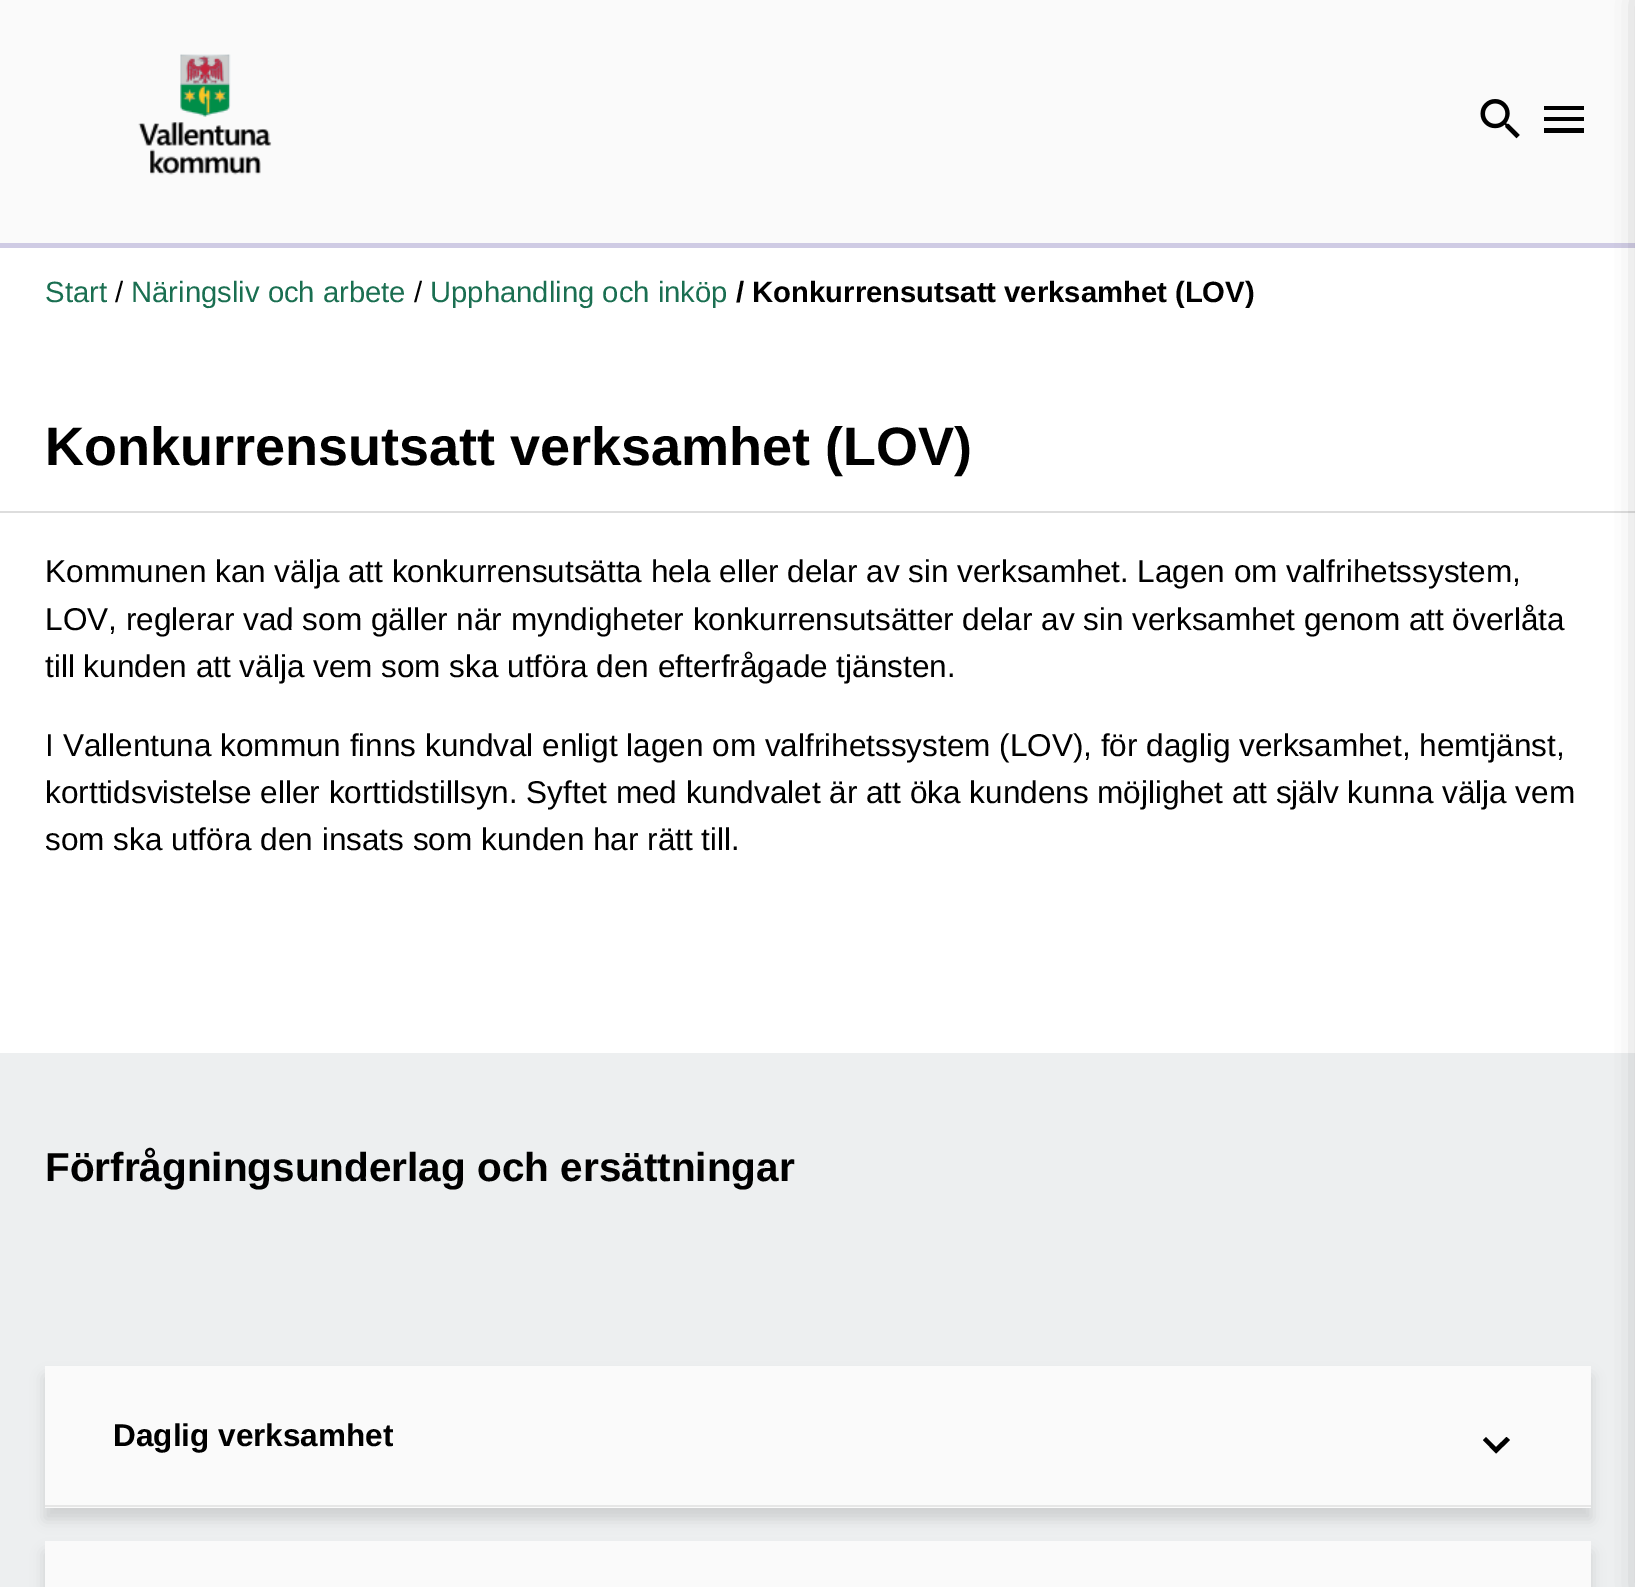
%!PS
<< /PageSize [1635 1587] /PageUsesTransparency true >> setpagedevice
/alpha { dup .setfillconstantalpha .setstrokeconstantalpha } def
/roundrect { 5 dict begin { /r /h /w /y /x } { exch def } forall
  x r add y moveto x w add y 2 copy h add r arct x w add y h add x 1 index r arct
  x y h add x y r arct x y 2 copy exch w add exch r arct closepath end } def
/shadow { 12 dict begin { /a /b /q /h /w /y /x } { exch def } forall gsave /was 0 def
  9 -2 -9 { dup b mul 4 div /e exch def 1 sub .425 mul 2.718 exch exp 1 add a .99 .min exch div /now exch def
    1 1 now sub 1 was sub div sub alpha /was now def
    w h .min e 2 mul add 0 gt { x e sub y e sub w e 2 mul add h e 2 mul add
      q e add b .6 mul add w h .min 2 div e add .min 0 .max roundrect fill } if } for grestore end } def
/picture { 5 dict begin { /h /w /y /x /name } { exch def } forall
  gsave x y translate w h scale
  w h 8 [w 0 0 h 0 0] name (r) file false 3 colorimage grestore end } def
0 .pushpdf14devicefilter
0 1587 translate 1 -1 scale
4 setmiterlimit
1 setgray
0 0 1635 1587 rectfill
0.98 setgray
0 0 1635 243 rectfill
0.812 0.796 0.894 setrgbcolor
0 243 1635 5 rectfill
(img1.rgb) 138 54 134 121 picture
(img2.rgb) 1480 99 40 40 picture
0 setgray
newpath 1544 106 moveto 1584 106 lineto 1584 110 lineto 1544 110 lineto closepath 1544 121 moveto 1544 117 lineto 1584 117 lineto 1584 121 lineto closepath 1544 133 moveto 1544 128 lineto 1584 128 lineto 1584 133 lineto closepath fill
/LiberationSans-Regular [29.25 0 0 -29.25 0 0] selectfont
0.102 0.435 0.318 setrgbcolor
45 302 moveto (Start) show
0 setgray
115 302 moveto (/) show
0.102 0.435 0.318 setrgbcolor
131 302 moveto (Näringsliv och arbete) show
0 setgray
414 302 moveto (/) show
0.102 0.435 0.318 setrgbcolor
430 302 moveto (Upphandling och inköp) show
/LiberationSans-Bold [29.25 0 0 -29.25 0 0] selectfont
0 setgray
736 302 moveto (/ Konkurrensutsatt verksamhet \(LOV\)) show
0.867 setgray
0 511 1635 2 rectfill
/LiberationSans-Bold [54 0 0 -54 0 0] selectfont
0 setgray
45 465 moveto (Konkurrensutsatt verksamhet \(LOV\)) show
/LiberationSans-Regular [31.5 0 0 -31.5 0 0] selectfont
45 582 moveto (Kommunen kan välja att konkurrensutsätta hela eller delar av sin verksamhet. Lagen om valfrihetssystem,) show
45 630 moveto (LOV, reglerar vad som gäller när myndigheter konkurrensutsätter delar av sin verksamhet genom att överlåta) show
45 677 moveto (till kunden att välja vem som ska utföra den efterfrågade tjänsten.) show
45 756 moveto (I Vallentuna kommun finns kundval enligt lagen om valfrihetssystem \(LOV\), för daglig verksamhet, hemtjänst,) show
45 803 moveto (korttidsvistelse eller korttidstillsyn. Syftet med kundvalet är att öka kundens möjlighet att själv kunna välja vem) show
45 850 moveto (som ska utföra den insats som kunden har rätt till.) show
0.929 0.937 0.941 setrgbcolor
0 1053 1635 534 rectfill
/LiberationSans-Bold [40.5 0 0 -40.5 0 0] selectfont
0 setgray
45 1181 moveto (Förfrågningsunderlag och ersättningar) show
45 1377 1546 142 0 7 0.13 shadow
0.98 setgray
45 1366 1546 142 rectfill
0.902 setgray
45 1505 1546 2 rectfill
/LiberationSans-Bold [31.5 0 0 -31.5 0 0] selectfont
0 setgray
113 1446 moveto (Daglig verksamhet) show
newpath 1486 1437 moveto 1496 1447 lineto 1506.5 1437 lineto 1510 1440 lineto 1496 1453.5 lineto 1483 1440 lineto closepath fill
45 1553 1546 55 0 7 0.13 shadow
0.98 setgray
45 1541 1546 46 rectfill
0 setgray
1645 0 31 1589 0 13.5 0.4 shadow
.poppdf14devicefilter showpage
